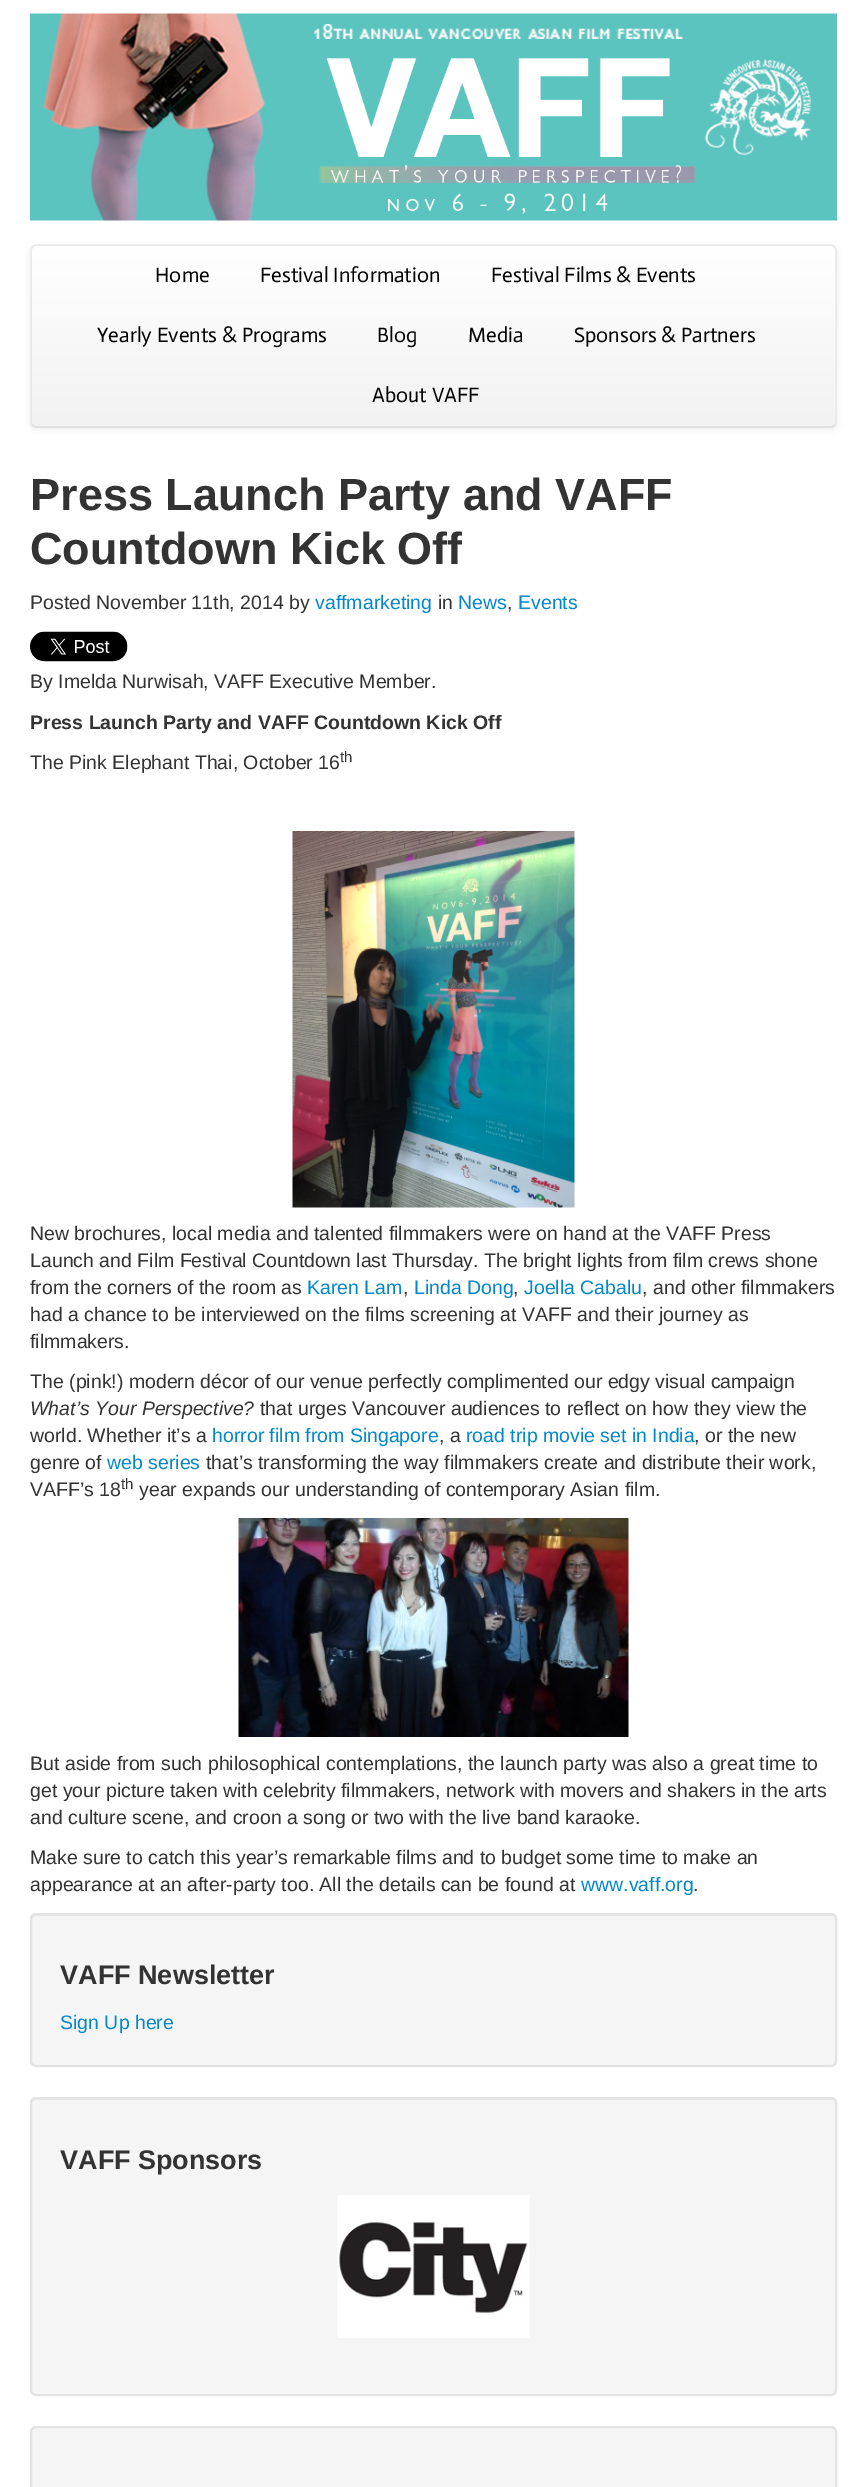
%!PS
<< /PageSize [867 2487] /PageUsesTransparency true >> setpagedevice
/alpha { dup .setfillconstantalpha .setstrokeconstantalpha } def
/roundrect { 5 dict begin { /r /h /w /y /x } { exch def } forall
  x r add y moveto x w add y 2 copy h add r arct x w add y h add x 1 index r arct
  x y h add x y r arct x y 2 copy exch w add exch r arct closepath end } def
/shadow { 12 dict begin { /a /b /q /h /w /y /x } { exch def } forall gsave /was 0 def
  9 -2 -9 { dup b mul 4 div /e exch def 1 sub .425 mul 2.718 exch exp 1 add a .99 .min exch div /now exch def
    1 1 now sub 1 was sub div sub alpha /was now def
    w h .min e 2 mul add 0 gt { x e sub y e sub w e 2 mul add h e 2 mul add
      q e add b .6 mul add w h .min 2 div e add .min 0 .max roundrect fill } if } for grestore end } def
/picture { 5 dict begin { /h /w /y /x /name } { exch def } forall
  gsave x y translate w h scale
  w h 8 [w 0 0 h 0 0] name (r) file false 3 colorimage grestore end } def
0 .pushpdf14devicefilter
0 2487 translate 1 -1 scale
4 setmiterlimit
1 setgray
0 0 867 2487 rectfill
(img1.rgb) 30 13 807 208 picture
0 setgray
30 246 807 183 6 3 0.07 shadow
0.922 setgray
30 245 807 183 6 roundrect fill
gsave
30 245 807 183 6 roundrect clip newpath
gsave newpath 30 246 moveto 837 246 lineto 837 426 lineto 30 426 lineto closepath clip newpath
<< /ShadingType 2 /ColorSpace /DeviceRGB /Coords [434 246 434 426] /Extend [true true] /Function << /FunctionType 2 /Domain [0 1] /C0 [1 1 1] /C1 [0.949 0.949 0.949] /N 1 >> >> shfill grestore
grestore
0.878 setgray
1.5 setlinewidth
newpath 834.5 425 moveto 833.5 426 832.5 427 831 427 curveto 36 427 lineto 34.5 427 33.5 426 32.5 425 curveto stroke
0.918 setgray
newpath 32.5 425 moveto 31.5 424 31 423 31 421.5 curveto 31 250.5 lineto 31 249 31.5 248 32.5 247 curveto 33.5 246 34.5 245 36 245 curveto 831 245 lineto 832.5 245 833.5 246 834.5 247 curveto 835.5 248 836 249 836 250.5 curveto 836 421.5 lineto 836 423 835.5 424 834.5 425 curveto stroke
/Actor-Regular [21 0 0 -21 0 0] selectfont
0 setgray
155 282 moveto (Home) show
260 282 moveto (Festival Information) show
491 282 moveto (Festival Films & Events) show
97 342 moveto (Yearly Events & Programs) show
377 342 moveto (Blog) show
468 342 moveto (Media) show
574 342 moveto (Sponsors & Partners) show
372 402 moveto (About VAFF) show
/LiberationSans-Bold [45 0 0 -45 0 0] selectfont
0.2 setgray
30 510 moveto (Press Launch Party and VAFF) show
30 564 moveto (Countdown Kick Off) show
/LiberationSans-Regular [19.5 0 0 -19.5 0 0] selectfont
30 609 moveto (Posted November 11th, 2014 by) show
0 0.533 0.8 setrgbcolor
315 609 moveto (vaffmarketing) show
0.2 setgray
438 609 moveto (in) show
0 0.533 0.8 setrgbcolor
458 609 moveto (News) show
0.2 setgray
507 609 moveto (,) show
0 0.533 0.8 setrgbcolor
518 609 moveto (Events) show
(img2.rgb) 30 631 98 31 picture
0.2 setgray
30 688 moveto (By Imelda Nurwisah, VAFF Executive Member.) show
/LiberationSans-Bold [19.5 0 0 -19.5 0 0] selectfont
30 729 moveto (Press Launch Party and VAFF Countdown Kick Off) show
/LiberationSans-Regular [19.5 0 0 -19.5 0 0] selectfont
30 769 moveto (The Pink Elephant Thai, October 16) show
/LiberationSans-Regular [15 0 0 -15 0 0] selectfont
340 762 moveto (th) show
(img3.rgb) 292 831 283 377 picture
/LiberationSans-Regular [19.5 0 0 -19.5 0 0] selectfont
30 1240 moveto (New brochures, local media and talented filmmakers were on hand at the VAFF Press) show
30 1267 moveto (Launch and Film Festival Countdown last Thursday. The bright lights from film crews shone) show
30 1294 moveto (from the corners of the room as) show
0 0.533 0.8 setrgbcolor
307 1294 moveto (Karen Lam) show
0.2 setgray
403 1294 moveto (,) show
0 0.533 0.8 setrgbcolor
414 1294 moveto (Linda Dong) show
0.2 setgray
513 1294 moveto (,) show
0 0.533 0.8 setrgbcolor
524 1294 moveto (Joella Cabalu) show
0.2 setgray
642 1294 moveto (, and other filmmakers) show
30 1321 moveto (had a chance to be interviewed on the films screening at VAFF and their journey as) show
30 1348 moveto (filmmakers.) show
30 1388 moveto (The \(pink!\) modern décor of our venue perfectly complimented our edgy visual campaign) show
/LiberationSans-Italic [19.5 0 0 -19.5 0 0] selectfont
30 1415 moveto (What’s Your Perspective?) show
/LiberationSans-Regular [19.5 0 0 -19.5 0 0] selectfont
260 1415 moveto (that urges Vancouver audiences to reflect on how they view the) show
30 1442 moveto (world. Whether it’s a) show
0 0.533 0.8 setrgbcolor
212 1442 moveto (horror film from Singapore) show
0.2 setgray
439 1442 moveto (, a) show
0 0.533 0.8 setrgbcolor
466 1442 moveto (road trip movie set in India) show
0.2 setgray
694 1442 moveto (, or the new) show
30 1469 moveto (genre of) show
0 0.533 0.8 setrgbcolor
107 1469 moveto (web series) show
0.2 setgray
206 1469 moveto (that’s transforming the way filmmakers create and distribute their work,) show
30 1496 moveto (VAFF’s 18) show
/LiberationSans-Regular [15 0 0 -15 0 0] selectfont
121 1489 moveto (th) show
/LiberationSans-Regular [19.5 0 0 -19.5 0 0] selectfont
139 1496 moveto (year expands our understanding of contemporary Asian film.) show
(img4.rgb) 238 1518 391 219 picture
30 1770 moveto (But aside from such philosophical contemplations, the launch party was also a great time to) show
30 1797 moveto (get your picture taken with celebrity filmmakers, network with movers and shakers in the arts) show
30 1824 moveto (and culture scene, and croon a song or two with the live band karaoke.) show
30 1864 moveto (Make sure to catch this year’s remarkable films and to budget some time to make an) show
30 1891 moveto (appearance at an after-party too. All the details can be found at) show
0 0.533 0.8 setrgbcolor
581 1891 moveto (www.vaff.org) show
0.2 setgray
693 1891 moveto (.) show
0.961 setgray
30 1913 807 154 6 roundrect fill
0.914 setgray
newpath 36 1916 moveto 831 1916 lineto 833 1916 836 1918 836 1920 curveto 836 1919 lineto 836 1916 834 1914 831 1914 curveto 37 1914 lineto 34 1914 32 1916 32 1919 curveto 32 1920 lineto 32 1918 34 1916 36 1916 curveto closepath fill
0.89 setgray
2 setlinewidth
31 1914 805 152 5 roundrect stroke
/LiberationSans-Bold [27 0 0 -27 0 0] selectfont
0.2 setgray
60 1984 moveto (VAFF Newsletter) show
/LiberationSans-Regular [19.5 0 0 -19.5 0 0] selectfont
0 0.533 0.8 setrgbcolor
60 2029 moveto (Sign Up here) show
0.961 setgray
30 2097 807 299 6 roundrect fill
0.914 setgray
newpath 36 2100 moveto 831 2100 lineto 833 2100 836 2102 836 2104 curveto 836 2101 834 2099 831 2099 curveto 37 2099 lineto 34 2099 32 2101 32 2104 curveto 32 2102 34 2100 36 2100 curveto closepath fill
0.89 setgray
31 2098 805 297 5 roundrect stroke
/LiberationSans-Bold [27 0 0 -27 0 0] selectfont
0.2 setgray
60 2169 moveto (VAFF Sponsors) show
(img5.rgb) 337 2195 193 143 picture
0.961 setgray
30 2426 807 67 6 roundrect fill
0.914 setgray
newpath 36 2428 moveto 831 2428 lineto 833 2428 836 2431 836 2433 curveto 836 2432 lineto 836 2429 834 2427 831 2427 curveto 37 2427 lineto 34 2427 32 2429 32 2432 curveto 32 2433 lineto 32 2431 34 2428 36 2428 curveto closepath fill
0.89 setgray
31 2427 805 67 5 roundrect stroke
.poppdf14devicefilter showpage
